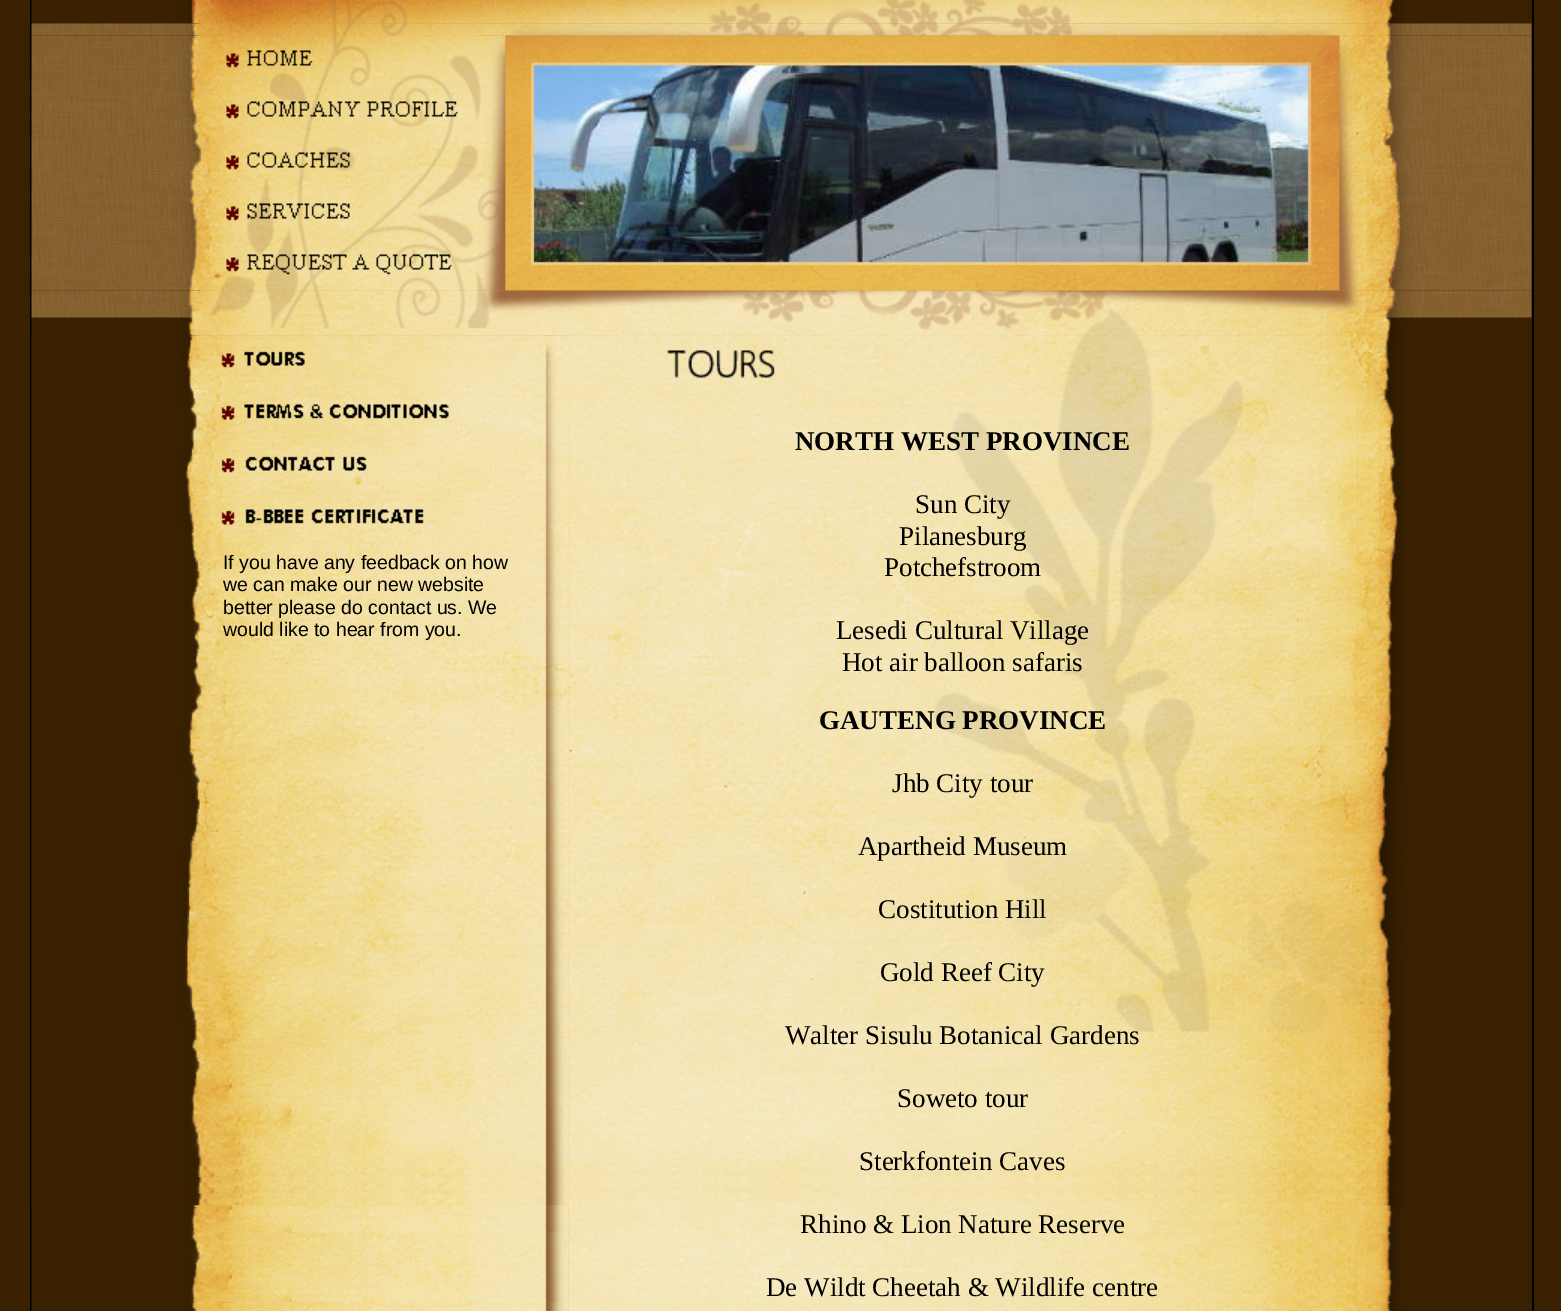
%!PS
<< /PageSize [1561 1311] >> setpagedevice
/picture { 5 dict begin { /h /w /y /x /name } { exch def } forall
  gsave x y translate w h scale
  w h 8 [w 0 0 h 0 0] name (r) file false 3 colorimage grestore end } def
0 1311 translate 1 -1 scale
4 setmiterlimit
0.224 0.125 0.004 setrgbcolor
0 0 1561 1311 rectfill
(img1.rgb) 199 23 1191 1288 picture
0 setgray
1532 0 2 1311 rectfill
30 0 2 1311 rectfill
(img2.rgb) 31 0 155 24 picture
(img3.rgb) 1365 0 38 24 picture
(img4.rgb) 186 0 1179 24 picture
(img7.rgb) 216 35 261 256 picture
(img8.rgb) 217 35 260 52 picture
(img5.rgb) 31 23 1501 13 picture
(img6.rgb) 31 35 185 256 picture
(img9.rgb) 226 50 87 18 picture
(img10.rgb) 224 86 244 52 picture
(img11.rgb) 226 101 232 18 picture
(img12.rgb) 216 137 261 52 picture
(img13.rgb) 226 152 124 18 picture
(img14.rgb) 216 188 259 52 picture
(img15.rgb) 226 203 124 18 picture
(img16.rgb) 216 239 261 52 picture
(img17.rgb) 226 254 226 21 picture
(img18.rgb) 477 35 29 256 picture
(img19.rgb) 505 35 835 256 picture
(img20.rgb) 1339 35 193 256 picture
(img22.rgb) 31 335 538 976 picture
(img24.rgb) 207 335 324 871 picture
(img31.rgb) 568 335 833 976 picture
(img32.rgb) 568 335 790 91 picture
(img21.rgb) 31 290 1501 46 picture
(img23.rgb) 31 335 176 871 picture
(img25.rgb) 221 351 84 17 picture
(img26.rgb) 221 404 228 16 picture
(img27.rgb) 221 456 146 17 picture
(img28.rgb) 221 509 203 16 picture
/LiberationSans-Regular [19.5 0 0 -19.5 0 0] selectfont
223 569 moveto (If you have any feedback on how) show
223 591 moveto (we can make our new website) show
223 614 moveto (better please do contact us. We) show
223 636 moveto (would like to hear from you.) show
(img35.rgb) 568 425 790 886 picture
(img29.rgb) 531 335 38 871 picture
(img30.rgb) 31 1205 538 2 picture
(img33.rgb) 568 335 790 91 picture
(img34.rgb) 1357 335 49 871 picture
/LiberationSerif-Bold [27 0 0 -27 0 0] selectfont
795 450 moveto (NORTH WEST PROVINCE) show
/LiberationSerif-Regular [27 0 0 -27 0 0] selectfont
915 513 moveto (Sun City) show
899 545 moveto (Pilanesburg) show
884 576 moveto (Potchefstroom) show
836 639 moveto (Lesedi Cultural Village) show
842 671 moveto (Hot air balloon safaris) show
/LiberationSerif-Bold [27 0 0 -27 0 0] selectfont
819 729 moveto (GAUTENG PROVINCE) show
/LiberationSerif-Regular [27 0 0 -27 0 0] selectfont
892 792 moveto (Jhb City tour) show
858 855 moveto (Apartheid Museum) show
878 918 moveto (Costitution Hill) show
880 981 moveto (Gold Reef City) show
785 1044 moveto (Walter Sisulu Botanical Gardens) show
897 1107 moveto (Soweto tour) show
859 1170 moveto (Sterkfontein Caves) show
800 1233 moveto (Rhino & Lion Nature Reserve) show
766 1296 moveto (De Wildt Cheetah & Wildlife centre) show
showpage
